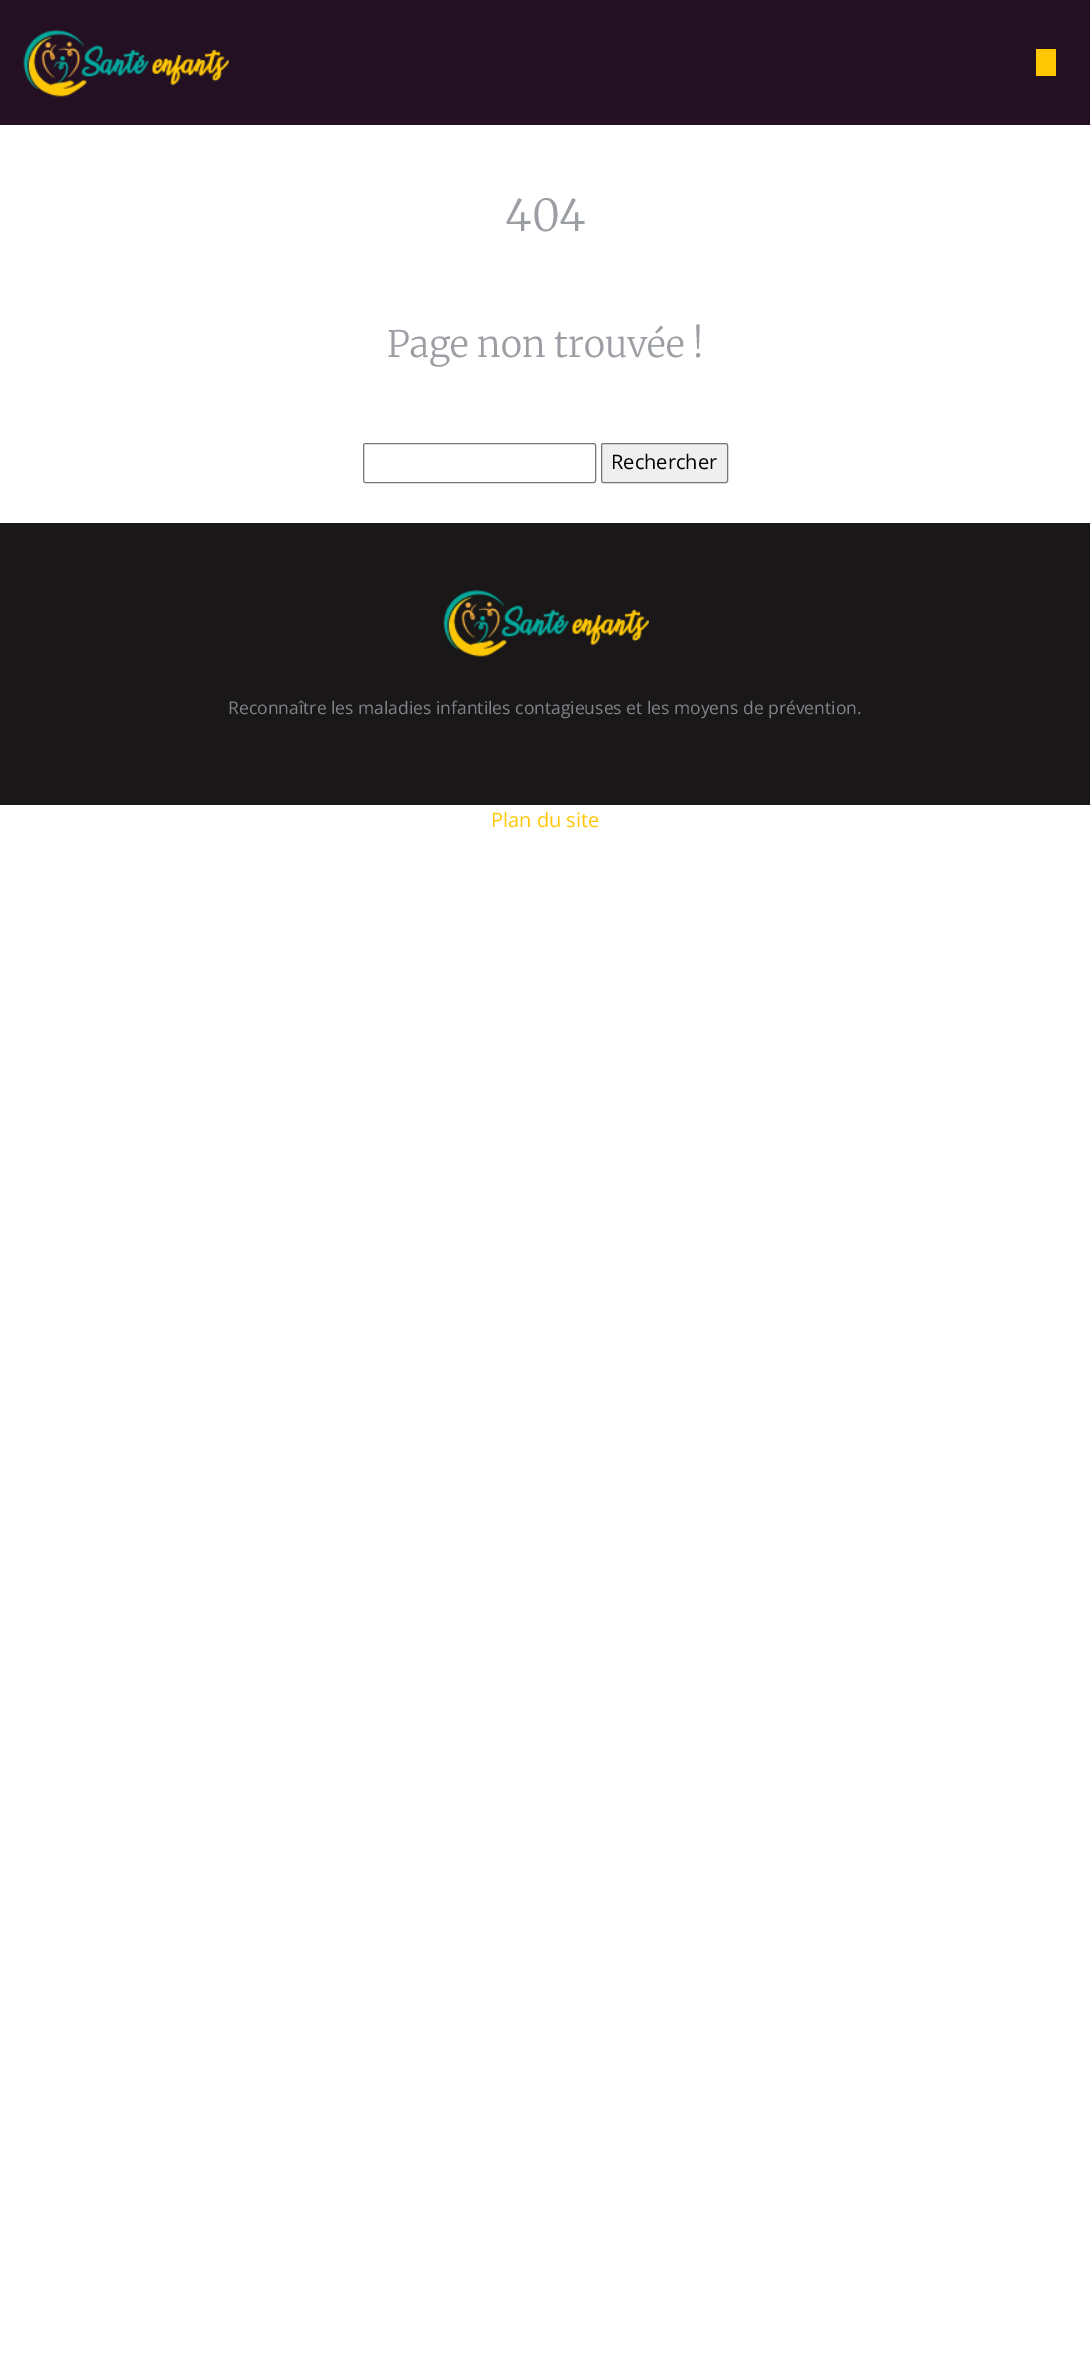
%!PS
<< /PageSize [1090 2360] >> setpagedevice
/roundrect { 5 dict begin { /r /h /w /y /x } { exch def } forall
  x r add y moveto x w add y 2 copy h add r arct x w add y h add x 1 index r arct
  x y h add x y r arct x y 2 copy exch w add exch r arct closepath end } def
/picture { 5 dict begin { /h /w /y /x /name } { exch def } forall
  gsave x y translate w h scale
  w h 8 [w 0 0 h 0 0] name (r) file false 3 colorimage grestore end } def
0 2360 translate 1 -1 scale
4 setmiterlimit
1 setgray
0 0 1090 2360 rectfill
0.137 0.063 0.133 setrgbcolor
0 0 1090 125 rectfill
(img1.rgb) 23 30 206 67 picture
1 0.78 0.004 setrgbcolor
1036 49 20 27 rectfill
/Merriweather-Light [44 0 0 -44 0 0] selectfont
0.608 0.62 0.635 setrgbcolor
505 231 moveto (404) show
/Merriweather-Light [36.25 0 0 -36.25 0 0] selectfont
387 357 moveto (Page non trouvée !) show
0.463 setgray
363.5 443.5 232 39 2 roundrect stroke
0.937 setgray
601.5 443.5 126 39 2 roundrect gsave fill grestore
0.463 setgray
stroke
/OpenSans-Regular [20 0 0 -20 0 0] selectfont
0 setgray
611 469 moveto (Rechercher) show
0.098 0.09 0.09 setrgbcolor
0 523 1090 282 rectfill
(img2.rgb) 443 590 206 67 picture
/OpenSans-Regular [17.5 0 0 -17.5 0 0] selectfont
0.502 0.518 0.537 setrgbcolor
228 714 moveto (Reconnaître les maladies infantiles contagieuses et les moyens de prévention.) show
/OpenSans-Regular [20 0 0 -20 0 0] selectfont
1 0.78 0.004 setrgbcolor
491 827 moveto (Plan du site) show
showpage
